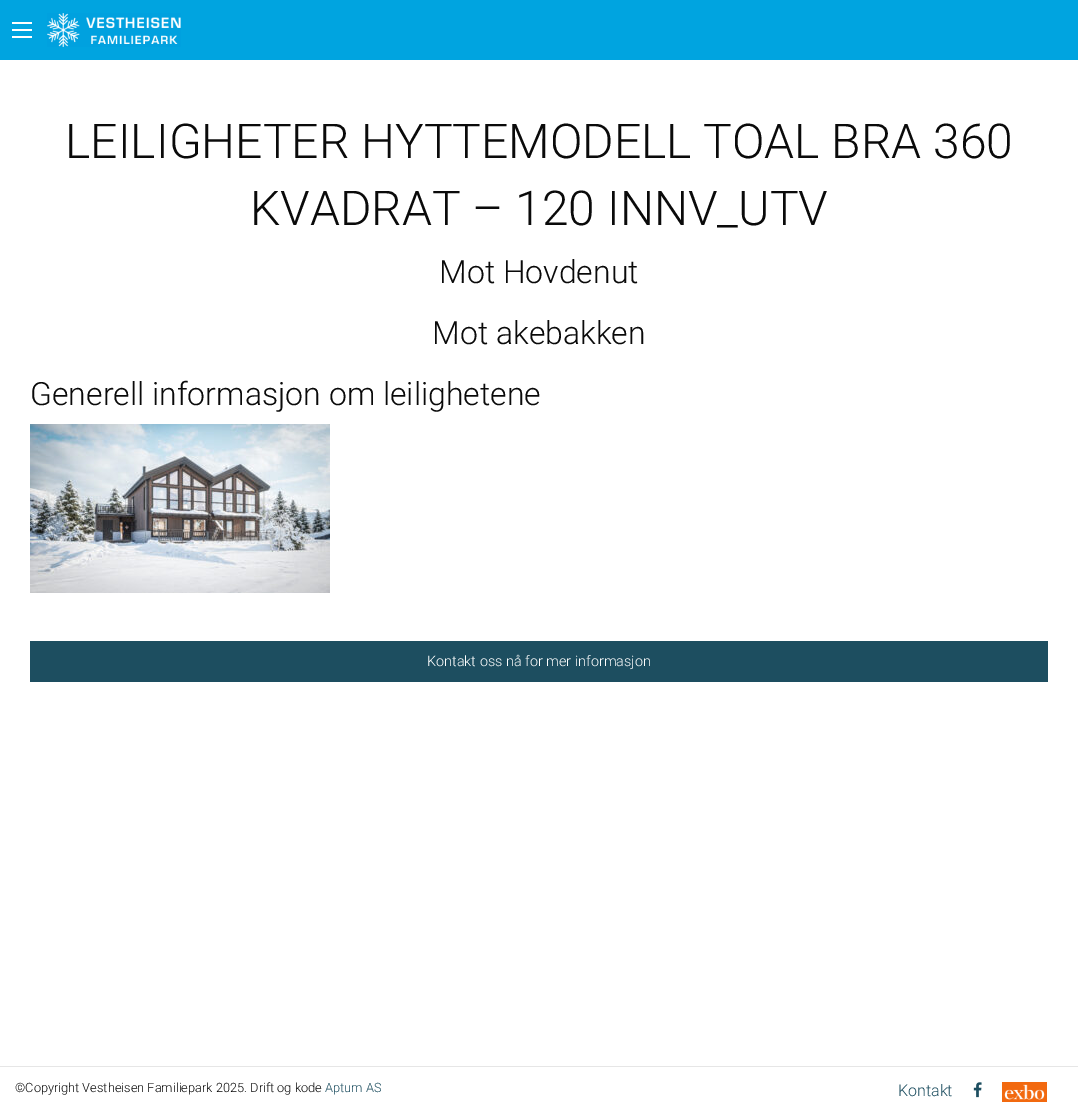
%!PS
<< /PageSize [1078 1116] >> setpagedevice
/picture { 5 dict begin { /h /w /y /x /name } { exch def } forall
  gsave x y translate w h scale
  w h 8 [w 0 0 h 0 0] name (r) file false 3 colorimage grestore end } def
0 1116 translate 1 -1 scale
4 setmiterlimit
1 setgray
0 0 1078 1116 rectfill
0 0.643 0.878 setrgbcolor
0 0 1078 60 rectfill
0.996 setgray
12 36 20 2 rectfill
12 29 20 2 rectfill
12 22 20 2 rectfill
(img1.rgb) 47 13 134 34 picture
/Roboto-Light [48 0 0 -48 0 0] selectfont
0.039 setgray
65 158 moveto (LEILIGHETER HYTTEMODELL TOAL BRA 360) show
250 225 moveto (KVADRAT – 120 INNV_UTV) show
/Roboto-Light [32 0 0 -32 0 0] selectfont
439 283 moveto (Mot Hovdenut) show
432 344 moveto (Mot akebakken) show
30 405 moveto (Generell informasjon om leilighetene) show
(img2.rgb) 30 424 300 169 picture
0.114 0.306 0.376 setrgbcolor
30 641 1018 41 rectfill
/Roboto-Light [14.4 0 0 -14.4 0 0] selectfont
0.996 setgray
427 666 moveto (Kontakt oss nå for mer informasjon) show
0.902 setgray
0 1066 1078 1 rectfill
/Roboto-Light [12.8 0 0 -12.8 0 0] selectfont
0.039 setgray
15 1092 moveto (©Copyright Vestheisen Familiepark 2025. Drift og kode) show
0.114 0.306 0.376 setrgbcolor
325 1092 moveto (Aptum AS) show
/Roboto-Light [16 0 0 -16 0 0] selectfont
898 1096 moveto (Kontakt) show
(img3.rgb) 973 1082 9 16 picture
(img4.rgb) 1002 1082 45 20 picture
showpage
